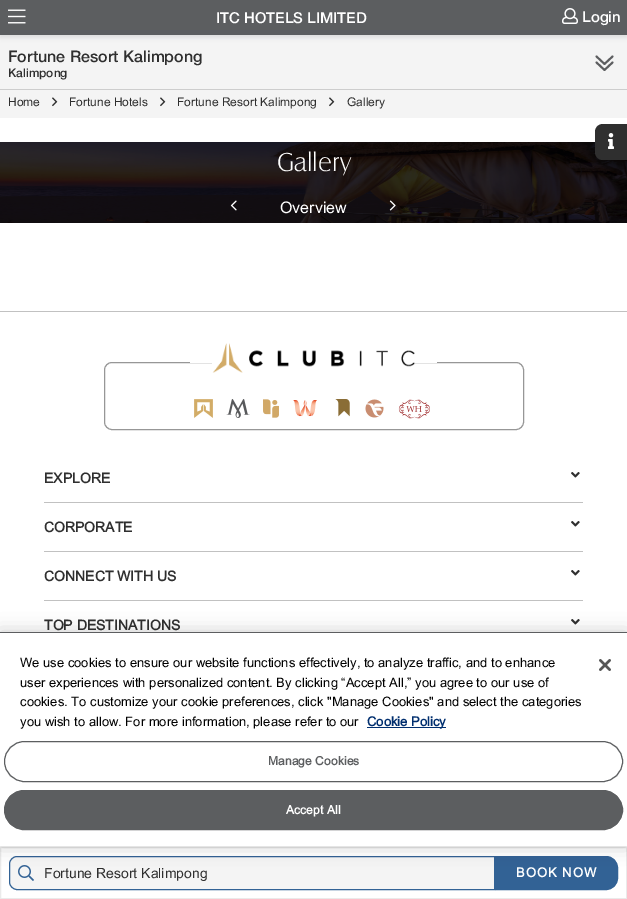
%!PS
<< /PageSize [627 899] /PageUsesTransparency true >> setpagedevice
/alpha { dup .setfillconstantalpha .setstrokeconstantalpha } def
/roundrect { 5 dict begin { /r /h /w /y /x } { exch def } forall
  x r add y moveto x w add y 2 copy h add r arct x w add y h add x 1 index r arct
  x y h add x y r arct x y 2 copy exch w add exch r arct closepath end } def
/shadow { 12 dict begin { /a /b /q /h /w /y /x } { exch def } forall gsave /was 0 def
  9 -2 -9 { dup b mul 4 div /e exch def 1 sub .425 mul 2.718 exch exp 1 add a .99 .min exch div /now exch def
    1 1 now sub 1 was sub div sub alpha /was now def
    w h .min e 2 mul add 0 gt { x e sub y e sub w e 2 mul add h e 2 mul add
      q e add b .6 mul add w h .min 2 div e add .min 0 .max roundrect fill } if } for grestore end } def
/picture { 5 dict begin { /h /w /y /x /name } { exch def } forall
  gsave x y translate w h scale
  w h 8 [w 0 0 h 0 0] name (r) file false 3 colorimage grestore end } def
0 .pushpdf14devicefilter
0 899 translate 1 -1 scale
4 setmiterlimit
1 setgray
0 0 627 899 rectfill
0.957 setgray
0 35 627 83 rectfill
0 setgray
0 2 627 35 0 2.5 0.1 shadow
0.361 0.369 0.376 setrgbcolor
0 0 627 35 rectfill
(img1.rgb) 8 9 18 15 picture
/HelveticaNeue-Medium [15 0 0 -15 0 0] selectfont
1 setgray
216 23 moveto (ITC HOTELS LIMITED) show
(img2.rgb) 562 8 16 16 picture
582 22 moveto (Login) show
/HelveticaNeue-Medium [16 0 0 -16 0 0] selectfont
0.184 setgray
8 62 moveto (Fortune Resort Kalimpong) show
/HelveticaNeue-Medium [12 0 0 -12 0 0] selectfont
8 77 moveto (Kalimpong) show
0.365 0.369 0.376 setrgbcolor
1.9 setlinewidth
1 setlinecap
1 setlinejoin
newpath 596.5 62.5 moveto 604.5 70 lineto 612.5 62.5 lineto 596.5 56.5 moveto 604.5 64 lineto 612.5 56.5 lineto stroke
0.804 setgray
0 89 627 1 rectfill
/Arial-Regular [12 0 0 -12 0 0] selectfont
0.184 setgray
8 106 moveto (Home) show
(img3.rgb) 52 97 6 10 picture
69 106 moveto (Fortune Hotels) show
(img3.rgb) 160 97 6 10 picture
177 106 moveto (Fortune Resort Kalimpong) show
(img3.rgb) 329 97 6 10 picture
347 106 moveto (Gallery) show
(img4.rgb) 0 142 627 81 picture
/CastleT-Light [27 0 0 -27 0 0] selectfont
1 setgray
277 171 moveto (Gallery) show
(img5.rgb) 230 200 7 11 picture
/Arial-Regular [16 0 0 -16 0 0] selectfont
280 213 moveto (Overview) show
(img6.rgb) 389 200 7 11 picture
0.184 setgray
newpath 603 124 moveto 627 124 lineto 627 160 lineto 603 160 lineto 598.5 160 595 156.5 595 152 curveto 595 132 lineto 595 127.5 598.5 124 603 124 curveto closepath fill
(img7.rgb) 608 133 6 16 picture
0.757 setgray
0 311 627 1 rectfill
0.592 setgray
1 setlinewidth
0 setlinecap
0 setlinejoin
104.5 362.5 419 67 7.5 roundrect stroke
1 setgray
190 362 247 1 rectfill
(img8.rgb) 212 343 203 30 picture
(img9.rgb) 194 399 19 19 picture
(img10.rgb) 226 399 24 19 picture
(img11.rgb) 263 399 16 19 picture
(img12.rgb) 293 400 24 17 picture
(img13.rgb) 335 399 15 18 picture
(img14.rgb) 365 399 19 19 picture
(img15.rgb) 398 399 32 20 picture
0.757 setgray
44 502 539 1 rectfill
/Arial-Bold [14 0 0 -14 0 0] selectfont
0.184 setgray
44 483 moveto (EXPLORE) show
(img16.rgb) 571 472 9 6 picture
0.757 setgray
44 551 539 1 rectfill
0.184 setgray
44 532 moveto (CORPORATE) show
(img16.rgb) 571 521 9 6 picture
0.757 setgray
44 600 539 1 rectfill
0.184 setgray
44 581 moveto (CONNECT WITH US) show
(img16.rgb) 571 570 9 6 picture
44 630 moveto (TOP DESTINATIONS) show
(img16.rgb) 571 619 9 6 picture
0.918 setgray
0.5 847.5 626 51 rectstroke
0.957 setgray
newpath 17 856.5 moveto 494.5 856.5 lineto 494.5 889.5 lineto 17 889.5 lineto 13 889.5 9.5 886 9.5 882 curveto 9.5 864 lineto 9.5 860 13 856.5 17 856.5 curveto closepath gsave fill grestore
0.196 0.384 0.584 setrgbcolor
stroke
(img18.rgb) 18 865 16 16 picture
newpath 495.5 856.5 moveto 606 856.5 lineto 612.5 856.5 617.5 861.5 617.5 868 curveto 617.5 878 lineto 617.5 884.5 612.5 889.5 606 889.5 curveto 495.5 889.5 lineto closepath gsave fill grestore
stroke
0 setgray
0 632 627 214 0 9 0.2 shadow
1 setgray
0 633 627 213 rectfill
0.361 0.369 0.376 setrgbcolor
0 632 627 1 rectfill
/Arial-Regular [13 0 0 -13 0 0] selectfont
0 setgray
20 667 moveto (We use cookies to ensure our website functions effectively, to analyze traffic, and to enhance) show
20 687 moveto (user experiences with personalized content. By clicking “Accept All,” you agree to our use of) show
20 706 moveto (cookies. To customize your cookie preferences, click "Manage Cookies" and select the categories) show
20 726 moveto (you wish to allow. For more information, please refer to our) show
0 0.18 0.431 setrgbcolor
367 727 79 1 rectfill
/Arial-Bold [13 0 0 -13 0 0] selectfont
367 726 moveto (Cookie Policy) show
0.361 0.369 0.376 setrgbcolor
4.5 741.5 618 40 20 roundrect stroke
/Arial-Bold [12 0 0 -12 0 0] selectfont
268 765 moveto 0.1 0 (Manage Cookies) ashow
4.5 790.5 618 39 19.5 roundrect gsave fill grestore
stroke
1 setgray
286 814 moveto 0.1 0 (Accept All) ashow
(img17.rgb) 599 659 12 12 picture
/Arial-Regular [14 0 0 -14 0 0] selectfont
0.184 setgray
44 878 moveto (Fortune Resort Kalimpong) show
/Arial-Bold [13 0 0 -13 0 0] selectfont
1 setgray
516 877 moveto 1 0 (BOOK NOW) ashow
.poppdf14devicefilter showpage
